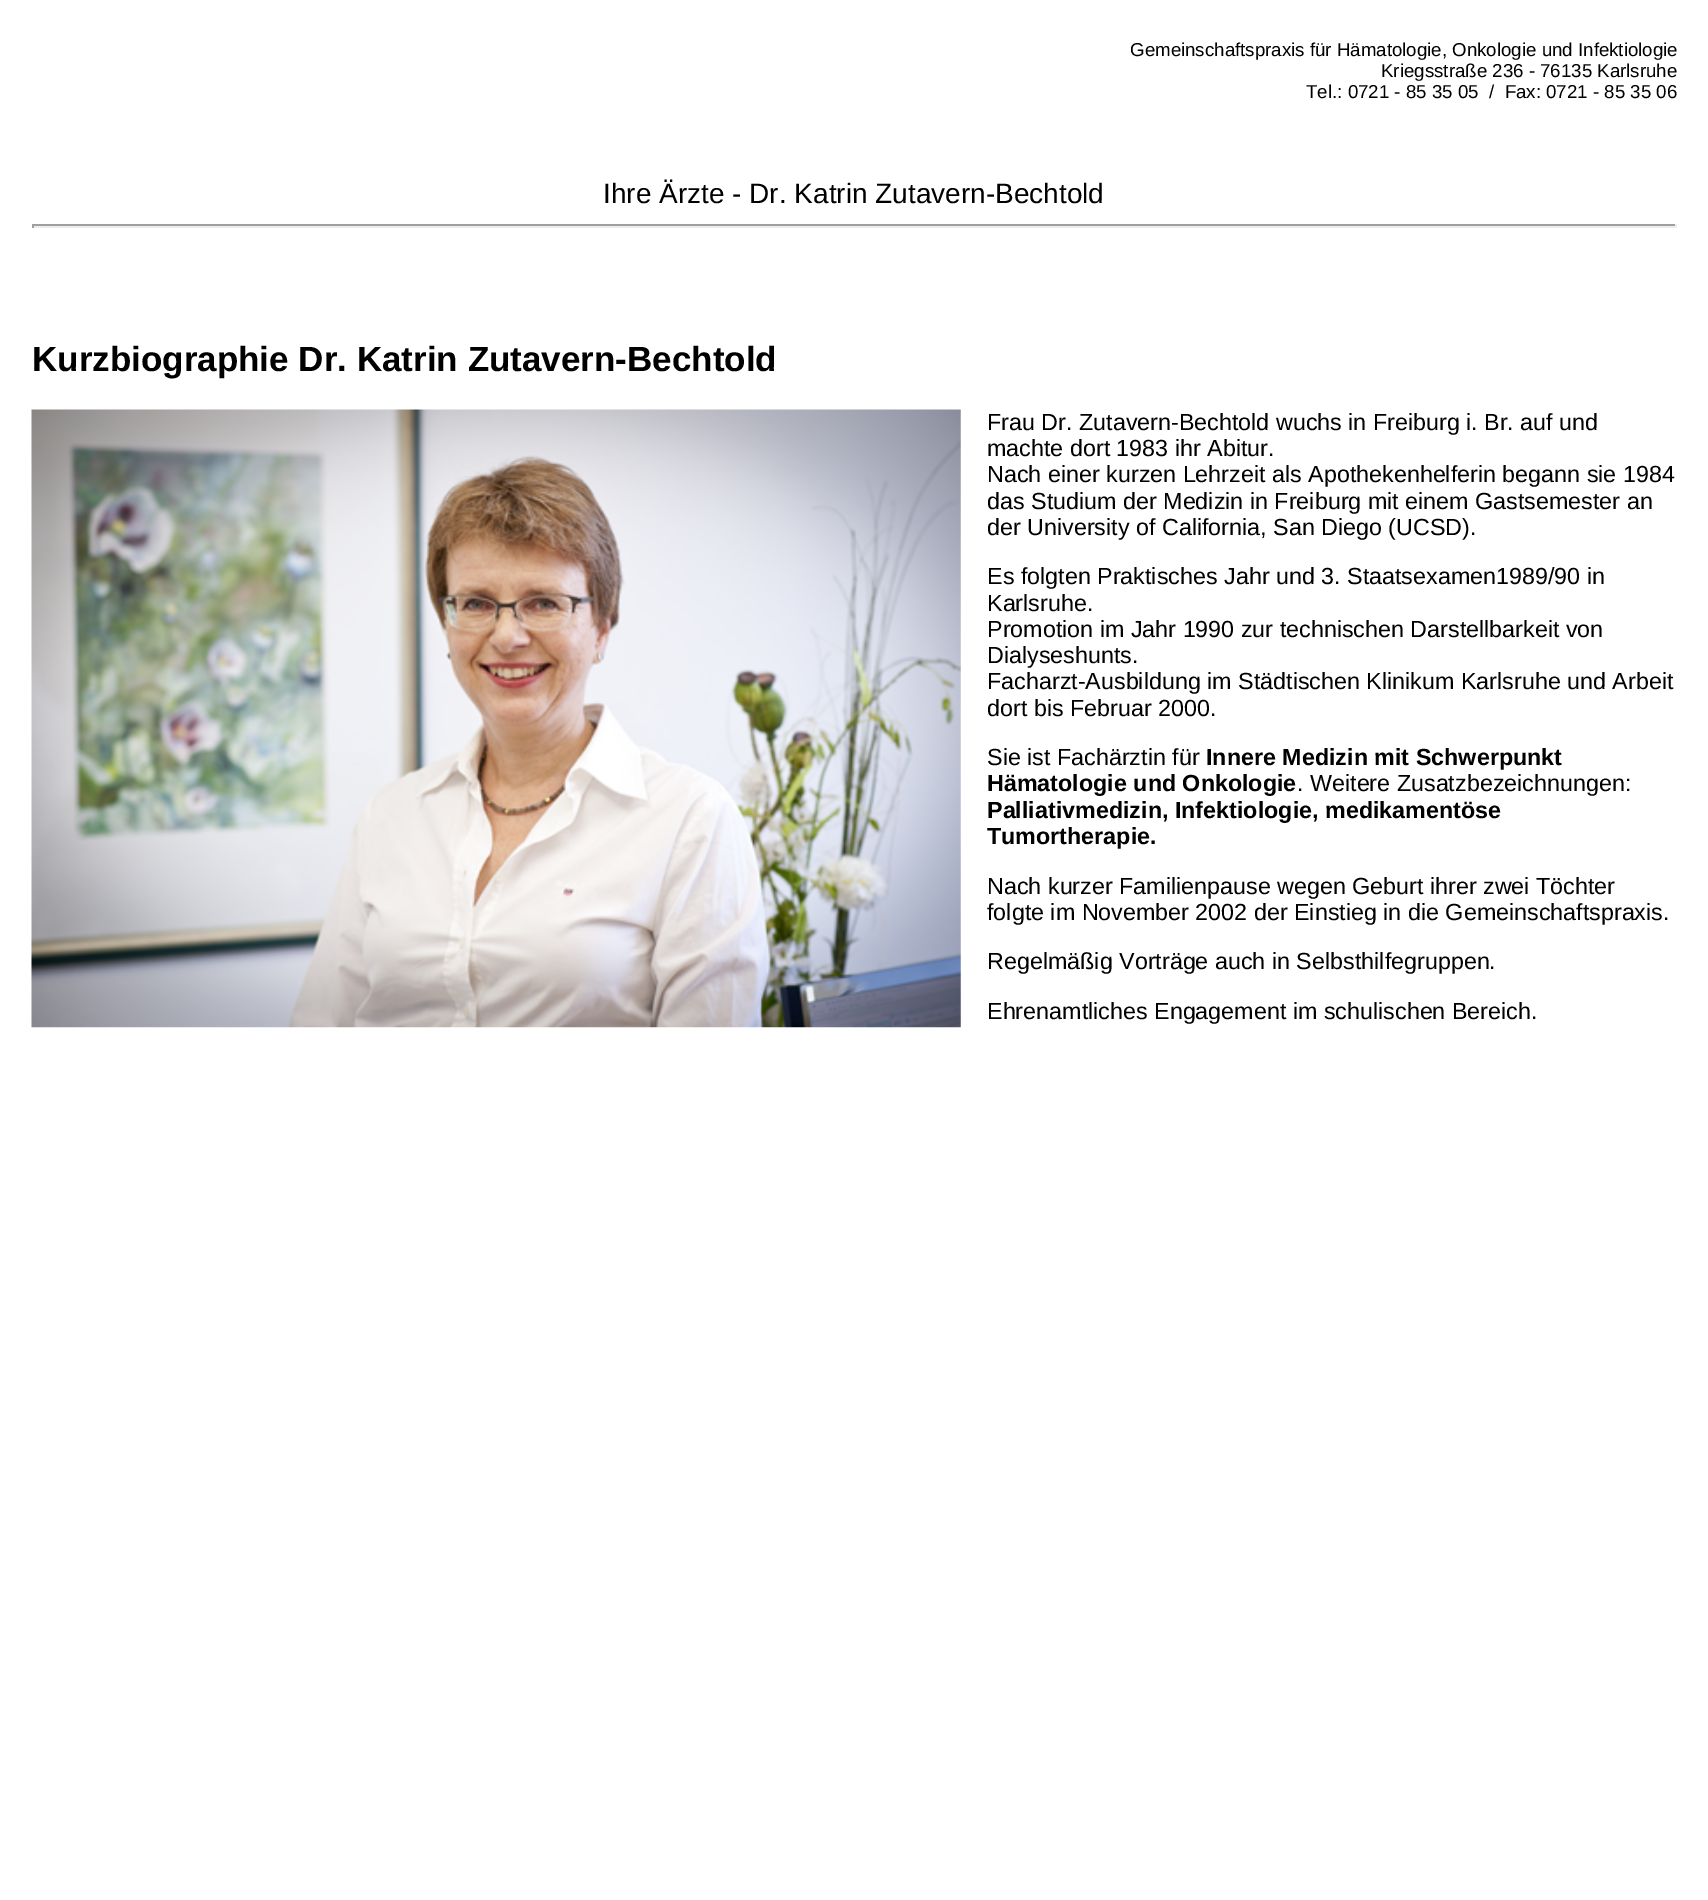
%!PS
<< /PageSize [1708 1900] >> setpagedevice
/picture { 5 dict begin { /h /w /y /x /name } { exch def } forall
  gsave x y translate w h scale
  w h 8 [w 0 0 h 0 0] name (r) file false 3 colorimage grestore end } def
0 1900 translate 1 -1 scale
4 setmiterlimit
1 setgray
0 0 1708 1900 rectfill
/LiberationSans-Regular [18.7 0 0 -18.7 0 0] selectfont
0 setgray
1130 56 moveto (Gemeinschaftspraxis für Hämatologie, Onkologie und Infektiologie) show
1381 77 moveto (Kriegsstraße 236 - 76135 Karlsruhe) show
1306 98 moveto (Tel.: 0721 - 85 35 05  /  Fax: 0721 - 85 35 06) show
/LiberationSans-Regular [28 0 0 -28 0 0] selectfont
603 203 moveto (Ihre Ärzte - Dr. Katrin Zutavern-Bechtold) show
0.624 setgray
32 224 1645 2 rectfill
0.933 setgray
1675 224 2 4 rectfill
32 226 1645 2 rectfill
0.624 setgray
32 224 2 4 rectfill
/LiberationSans-Bold [35 0 0 -35 0 0] selectfont
0 setgray
32 371 moveto (Kurzbiographie Dr. Katrin Zutavern-Bechtold) show
(img1.rgb) 31 409 930 619 picture
/LiberationSans-Regular [23.3 0 0 -23.3 0 0] selectfont
987 430 moveto (Frau Dr. Zutavern-Bechtold wuchs in Freiburg i. Br. auf und) show
987 456 moveto (machte dort 1983 ihr Abitur.) show
987 482 moveto (Nach einer kurzen Lehrzeit als Apothekenhelferin begann sie 1984) show
987 509 moveto (das Studium der Medizin in Freiburg mit einem Gastsemester an) show
987 535 moveto (der University of California, San Diego \(UCSD\).) show
987 584 moveto (Es folgten Praktisches Jahr und 3. Staatsexamen1989/90 in) show
987 611 moveto (Karlsruhe.) show
987 637 moveto (Promotion im Jahr 1990 zur technischen Darstellbarkeit von) show
987 663 moveto (Dialyseshunts.) show
987 689 moveto (Facharzt-Ausbildung im Städtischen Klinikum Karlsruhe und Arbeit) show
987 716 moveto (dort bis Februar 2000.) show
987 765 moveto (Sie ist Fachärztin für) show
/LiberationSans-Bold [23.3 0 0 -23.3 0 0] selectfont
1206 765 moveto (Innere Medizin mit Schwerpunkt) show
987 791 moveto (Hämatologie und Onkologie) show
/LiberationSans-Regular [23.3 0 0 -23.3 0 0] selectfont
1297 791 moveto (. Weitere Zusatzbezeichnungen:) show
/LiberationSans-Bold [23.3 0 0 -23.3 0 0] selectfont
987 818 moveto (Palliativmedizin, Infektiologie, medikamentöse) show
987 844 moveto (Tumortherapie.) show
/LiberationSans-Regular [23.3 0 0 -23.3 0 0] selectfont
987 894 moveto (Nach kurzer Familienpause wegen Geburt ihrer zwei Töchter) show
987 920 moveto (folgte im November 2002 der Einstieg in die Gemeinschaftspraxis.) show
987 969 moveto (Regelmäßig Vorträge auch in Selbsthilfegruppen.) show
987 1019 moveto (Ehrenamtliches Engagement im schulischen Bereich.) show
showpage
